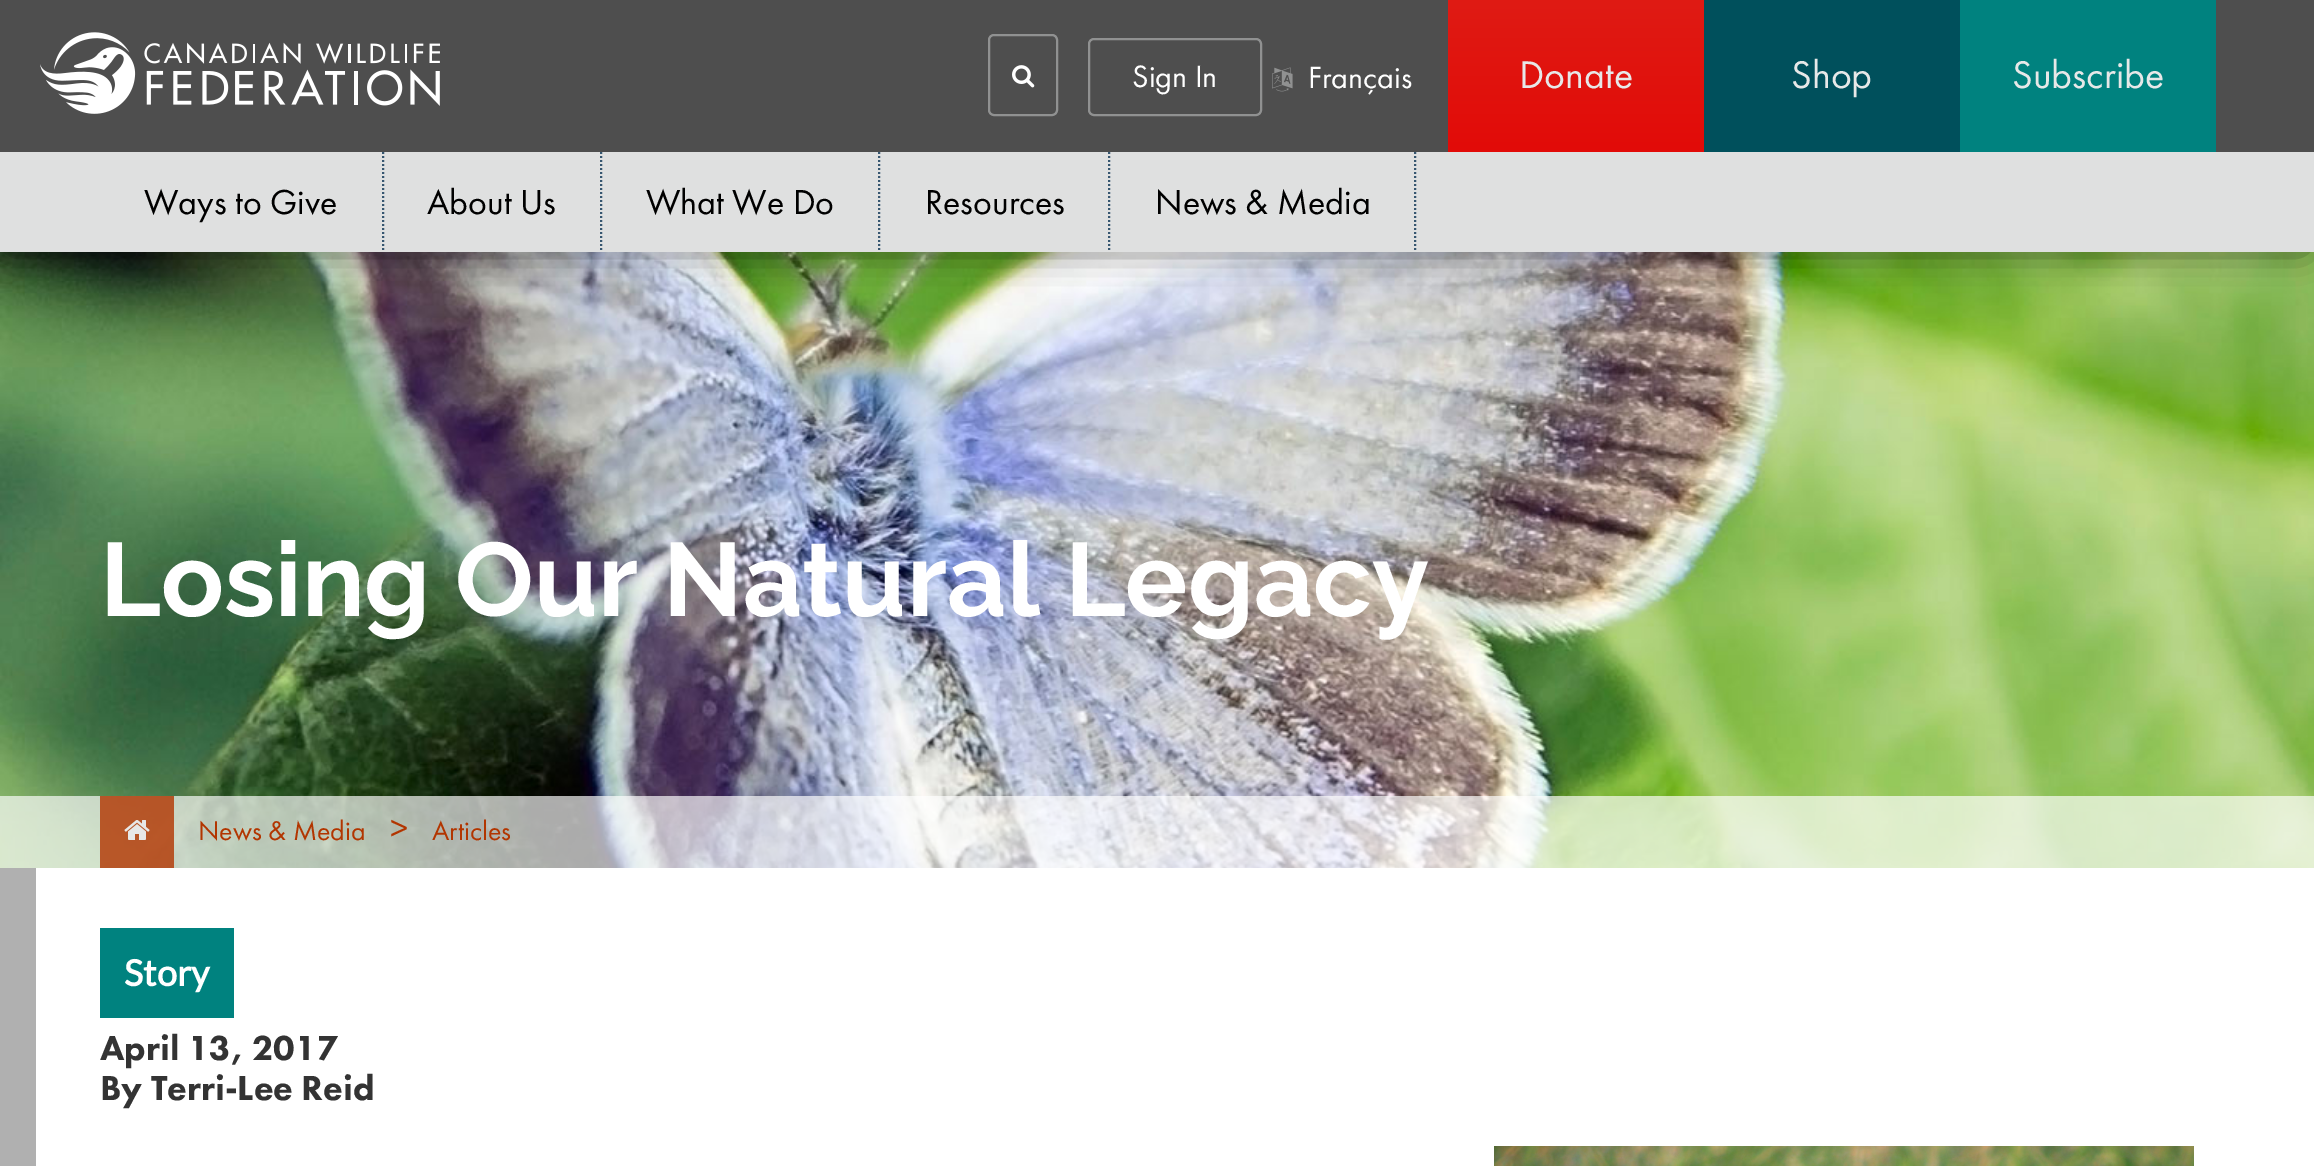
%!PS
<< /PageSize [2314 1166] /PageUsesTransparency true >> setpagedevice
/alpha { dup .setfillconstantalpha .setstrokeconstantalpha } def
/roundrect { 5 dict begin { /r /h /w /y /x } { exch def } forall
  x r add y moveto x w add y 2 copy h add r arct x w add y h add x 1 index r arct
  x y h add x y r arct x y 2 copy exch w add exch r arct closepath end } def
/shadow { 12 dict begin { /a /b /q /h /w /y /x } { exch def } forall gsave /was 0 def
  9 -2 -9 { dup b mul 4 div /e exch def 1 sub .425 mul 2.718 exch exp 1 add a .99 .min exch div /now exch def
    1 1 now sub 1 was sub div sub alpha /was now def
    w h .min e 2 mul add 0 gt { x e sub y e sub w e 2 mul add h e 2 mul add
      q e add b .6 mul add w h .min 2 div e add .min 0 .max roundrect fill } if } for grestore end } def
/picture { 5 dict begin { /h /w /y /x /name } { exch def } forall
  gsave x y translate w h scale
  w h 8 [w 0 0 h 0 0] name (r) file false 3 colorimage grestore end } def
0 .pushpdf14devicefilter
0 1166 translate 1 -1 scale
4 setmiterlimit
1 setgray
0 0 2314 1166 rectfill
(img4.rgb) 0 252 2314 616 picture
0 setgray
10 14 2294 232 0 18 0.75 shadow
0.306 setgray
0 0 2314 152 rectfill
(img1.rgb) 40 32 400 82 picture
0.565 0.569 0.569 setrgbcolor
2 setlinewidth
989 35 68 80 5 roundrect stroke
(img2.rgb) 1012 65 23 23 picture
1089 39 172 76 5 roundrect stroke
/FuturaPT-Regular [32 0 0 -32 0 0] selectfont
1 setgray
1132 87 moveto (Sign In) show
(img3.rgb) 1272 67 21 25 picture
1308 88 moveto (Français) show
gsave newpath 1448 0 moveto 1704 0 lineto 1704 152 lineto 1448 152 lineto closepath clip newpath
<< /ShadingType 2 /ColorSpace /DeviceRGB /Coords [1576 -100 1576 260] /Extend [true true] /Function << /FunctionType 2 /Domain [0 1] /C0 [0.863 0.149 0.11] /C1 [0.898 0 0] /N 1 >> >> shfill grestore
/FuturaPT-Regular [40 0 0 -40 0 0] selectfont
0.906 0.91 0.91 setrgbcolor
1519 88 moveto (Donate) show
0 0.314 0.361 setrgbcolor
1704 0 256 152 rectfill
0.906 0.91 0.91 setrgbcolor
1791 88 moveto (Shop) show
0 0.51 0.498 setrgbcolor
1960 0 256 152 rectfill
0.906 0.91 0.91 setrgbcolor
2012 88 moveto (Subscribe) show
0.875 0.878 0.878 setrgbcolor
0 152 2314 100 rectfill
0.212 0.337 0.439 setrgbcolor
[2 2] 0 setdash
newpath 383 152 moveto 383 252 lineto stroke
/FuturaPT-Regular [36 0 0 -36 0 0] selectfont
0 setgray
144 214 moveto (Ways to Give) show
0.212 0.337 0.439 setrgbcolor
newpath 601 152 moveto 601 252 lineto stroke
0 setgray
427 214 moveto (About Us) show
0.212 0.337 0.439 setrgbcolor
newpath 879 152 moveto 879 252 lineto stroke
0 setgray
646 214 moveto (What We Do) show
0.212 0.337 0.439 setrgbcolor
newpath 1109 152 moveto 1109 252 lineto stroke
0 setgray
925 214 moveto (Resources) show
0.212 0.337 0.439 setrgbcolor
newpath 1415 152 moveto 1415 252 lineto stroke
0 setgray
1155 214 moveto (News & Media) show
/Raleway-Bold [104 0 0 -104 0 0] selectfont
1 setgray
100 616 moveto (Losing Our Natural Legacy) show
0.67 alpha
0 796 2314 72 rectfill
0.8 alpha
0.698 0.208 0 setrgbcolor
100 796 74 72 rectfill
1 alpha
(img5.rgb) 124 820 26 20 picture
/FuturaPT-Regular [28 0 0 -28 0 0] selectfont
198 840 moveto (News & Media) show
/FuturaPT-Regular [36 0 0 -36 0 0] selectfont
390 840 moveto (>) show
/FuturaPT-Regular [28 0 0 -28 0 0] selectfont
432 840 moveto (Articles) show
0.69 setgray
0 868 36 298 rectfill
0 0.51 0.498 setrgbcolor
100 928 134 90 rectfill
/Lato-Bold [36 0 0 -36 0 0] selectfont
1 setgray
124 986 moveto (Story) show
/FuturaPT-Black [36 0 0 -36 0 0] selectfont
0.2 setgray
100 1060 moveto (April 13, 2017) show
100 1100 moveto (By Terri-Lee Reid) show
(img6.rgb) 1494 1146 700 20 picture
.poppdf14devicefilter showpage
